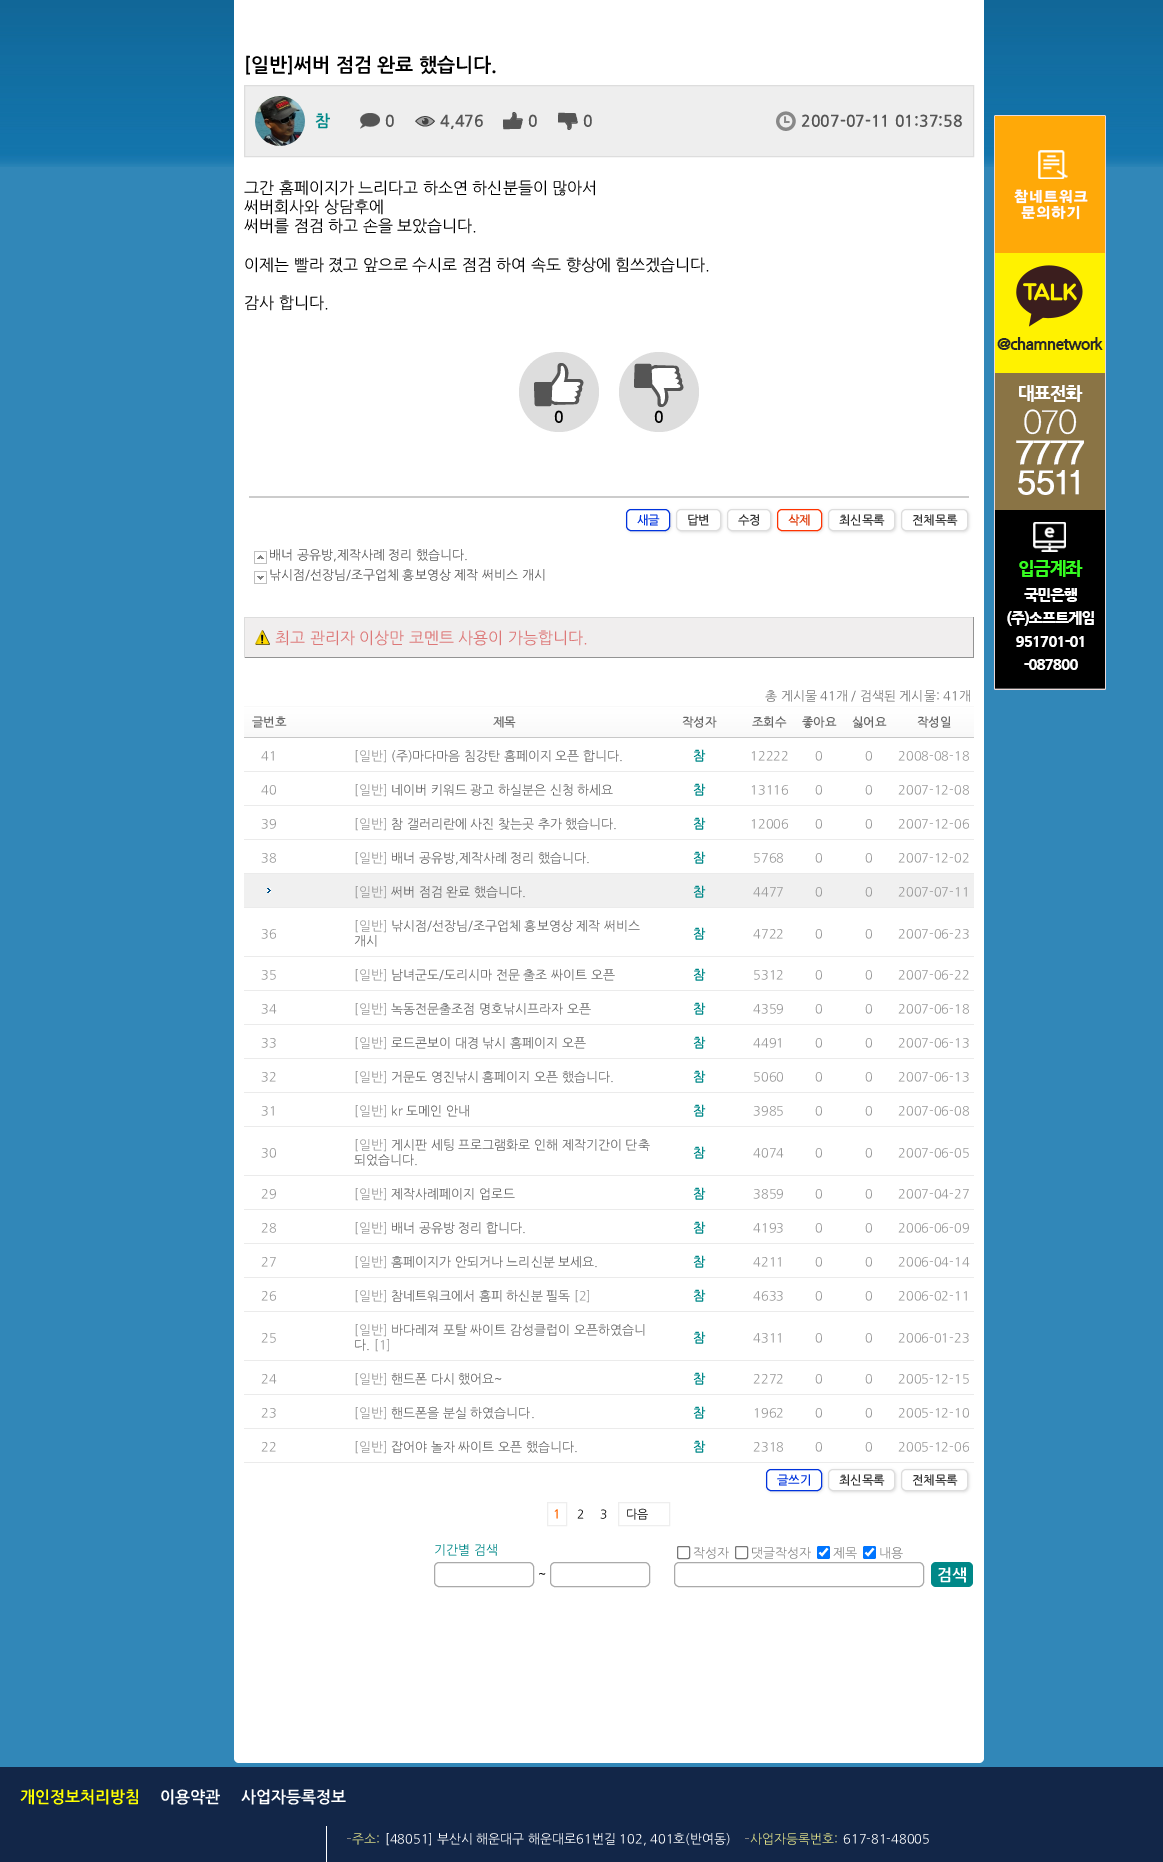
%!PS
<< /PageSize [1163 1862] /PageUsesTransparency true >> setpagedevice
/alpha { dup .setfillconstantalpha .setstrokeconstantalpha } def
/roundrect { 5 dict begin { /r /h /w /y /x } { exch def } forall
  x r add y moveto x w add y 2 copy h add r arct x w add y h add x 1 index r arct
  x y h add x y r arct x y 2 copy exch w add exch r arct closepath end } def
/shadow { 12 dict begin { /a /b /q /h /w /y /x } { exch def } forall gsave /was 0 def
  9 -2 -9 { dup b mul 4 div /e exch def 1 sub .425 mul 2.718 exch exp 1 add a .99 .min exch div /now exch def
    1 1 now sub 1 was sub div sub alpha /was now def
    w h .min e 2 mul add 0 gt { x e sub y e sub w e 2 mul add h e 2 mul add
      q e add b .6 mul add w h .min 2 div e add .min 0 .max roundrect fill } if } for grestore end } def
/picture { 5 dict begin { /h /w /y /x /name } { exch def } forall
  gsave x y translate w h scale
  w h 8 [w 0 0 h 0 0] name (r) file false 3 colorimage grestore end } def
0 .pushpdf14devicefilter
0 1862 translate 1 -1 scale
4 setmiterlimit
0.192 0.529 0.722 setrgbcolor
0 0 1163 1862 rectfill
(img1.rgb) 0 0 1163 167 picture
1 setgray
234 -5 750 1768 5 roundrect fill
/NanumGothic-Bold [19.25 0 0 -19.25 0 0] selectfont
0 setgray
244 71 moveto ([일반]써버 점검 완료 했습니다.) show
0.933 setgray
newpath 244.5 85.5 moveto 973.5 85.5 lineto 973.5 156.5 lineto 244.5 156.5 lineto closepath gsave fill grestore
0.867 setgray
stroke
newpath 280 121 25 0 360 arc closepath fill
(img2.rgb) 255 96 50 50 picture
/NanumGothic-Bold [16 0 0 -16 0 0] selectfont
0 0.533 0.533 setrgbcolor
315 126 moveto (참) show
(img3.rgb) 360 113 20 16 picture
0.333 setgray
385 126 moveto (0) show
(img4.rgb) 415 116 20 11 picture
440 126 moveto (4,476) show
(img5.rgb) 503 112 20 18 picture
528 126 moveto (0) show
(img6.rgb) 558 112 20 18 picture
583 126 moveto (0) show
(img7.rgb) 776 111 20 20 picture
801 126 moveto (2007-07-11 01:37:58) show
/NanumGothic-Regular [16 0 0 -16 0 0] selectfont
0 setgray
244 193 moveto (그간 홈페이지가 느리다고 하소연 하신분들이 많아서) show
244 212 moveto (써버회사와 상담후에) show
244 231 moveto (써버를 점검 하고 손을 보았습니다.) show
244 270 moveto (이제는 빨라 졌고 앞으로 수시로 점검 하여 속도 향상에 힘쓰겠습니다.) show
244 308 moveto (감사 합니다.) show
0.867 setgray
newpath 559 392 40 0 360 arc closepath fill
(img8.rgb) 534 363 50 44 picture
/NanumGothic-Bold [16 0 0 -16 0 0] selectfont
0 setgray
554 422 moveto (0) show
0.867 setgray
newpath 659 392 40 0 360 arc closepath fill
(img9.rgb) 634 363 50 44 picture
0 setgray
654 422 moveto (0) show
0.8 setgray
249 496 720 2 rectfill
gsave
newpath 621 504 moveto 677 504 lineto 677 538 lineto 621 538 lineto closepath 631 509 moveto 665 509 lineto 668 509 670 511 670 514 curveto 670 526 lineto 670 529 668 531 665 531 curveto 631 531 lineto 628 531 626 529 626 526 curveto 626 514 lineto 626 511 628 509 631 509 curveto closepath eoclip newpath
0.867 setgray
627 510 44 22 5 1.5 1 shadow
grestore
0 0.2 0.867 setrgbcolor
626.5 509.5 43 21 4.5 roundrect stroke
/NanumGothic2-Bold [12 0 0 -12 0 0] selectfont
637 524 moveto (새글) show
gsave
newpath 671 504 moveto 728 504 lineto 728 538 lineto 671 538 lineto closepath 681 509 moveto 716 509 lineto 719 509 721 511 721 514 curveto 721 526 lineto 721 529 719 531 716 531 curveto 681 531 lineto 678 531 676 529 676 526 curveto 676 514 lineto 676 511 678 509 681 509 curveto closepath eoclip newpath
0.867 setgray
677 510 45 22 5 1.5 1 shadow
grestore
0.867 setgray
676.5 509.5 44 21 4.5 roundrect stroke
0.2 setgray
687 524 moveto (답변) show
gsave
newpath 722 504 moveto 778 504 lineto 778 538 lineto 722 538 lineto closepath 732 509 moveto 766 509 lineto 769 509 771 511 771 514 curveto 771 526 lineto 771 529 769 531 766 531 curveto 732 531 lineto 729 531 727 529 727 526 curveto 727 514 lineto 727 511 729 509 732 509 curveto closepath eoclip newpath
0.867 setgray
728 510 44 22 5 1.5 1 shadow
grestore
0.867 setgray
727.5 509.5 43 21 4.5 roundrect stroke
0.2 setgray
738 524 moveto (수정) show
gsave
newpath 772 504 moveto 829 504 lineto 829 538 lineto 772 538 lineto closepath 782 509 moveto 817 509 lineto 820 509 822 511 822 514 curveto 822 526 lineto 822 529 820 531 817 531 curveto 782 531 lineto 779 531 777 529 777 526 curveto 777 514 lineto 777 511 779 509 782 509 curveto closepath eoclip newpath
0.867 setgray
778 510 45 22 5 1.5 1 shadow
grestore
1 0.2 0 setrgbcolor
777.5 509.5 44 21 4.5 roundrect stroke
0.867 0.2 0 setrgbcolor
788 524 moveto (삭제) show
gsave
newpath 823 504 moveto 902 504 lineto 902 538 lineto 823 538 lineto closepath 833 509 moveto 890 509 lineto 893 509 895 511 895 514 curveto 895 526 lineto 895 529 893 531 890 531 curveto 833 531 lineto 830 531 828 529 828 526 curveto 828 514 lineto 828 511 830 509 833 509 curveto closepath eoclip newpath
0.867 setgray
829 510 67 22 5 1.5 1 shadow
grestore
0.867 setgray
828.5 509.5 66 21 4.5 roundrect stroke
0.2 setgray
839 524 moveto (최신목록) show
gsave
newpath 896 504 moveto 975 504 lineto 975 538 lineto 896 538 lineto closepath 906 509 moveto 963 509 lineto 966 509 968 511 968 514 curveto 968 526 lineto 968 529 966 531 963 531 curveto 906 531 lineto 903 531 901 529 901 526 curveto 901 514 lineto 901 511 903 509 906 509 curveto closepath eoclip newpath
0.867 setgray
902 510 67 22 5 1.5 1 shadow
grestore
0.867 setgray
901.5 509.5 66 21 4.5 roundrect stroke
0.2 setgray
912 524 moveto (전체목록) show
(img10.rgb) 254 551 13 13 picture
/NanumGothic-Regular [12.8 0 0 -12.8 0 0] selectfont
0.333 setgray
269 559 moveto (배너 공유방,제작사례 정리 했습니다.) show
(img11.rgb) 254 571 13 13 picture
269 579 moveto (낚시점/선장님/조구업체 홍보영상 제작 써비스 개시) show
0.941 0.933 0.933 setrgbcolor
245 618 728 39 rectfill
(img12.rgb) 255 630 15 15 picture
0.867 setgray
244 617 730 1 rectfill
0.576 setgray
973 617 1 41 rectfill
244 657 730 1 rectfill
0.867 setgray
244 617 1 41 rectfill
/NanumGothic-Regular [16 0 0 -16 0 0] selectfont
0.867 0.467 0.467 setrgbcolor
275 643 moveto (최고 관리자 이상만 코멘트 사용이 가능합니다.) show
/NanumGothic-Regular [12.8 0 0 -12.8 0 0] selectfont
0.467 setgray
765 700 moveto (총 게시물 41개 / 검색된 게시물: 41개) show
(img13.rgb) 244 706 730 32 picture
/NanumGothic2-Bold [12 0 0 -12 0 0] selectfont
0.4 setgray
252 726 moveto (글번호) show
493 726 moveto (제목) show
682 726 moveto (작성자) show
752 726 moveto (조회수) show
802 726 moveto (좋아요) show
852 726 moveto (싫어요) show
917 726 moveto (작성일) show
0.922 setgray
244 771 730 1 rectfill
/NanumGothic-Regular [12.8 0 0 -12.8 0 0] selectfont
0.6 setgray
261 760 moveto (41) show
354 760 moveto ([일반]) show
0.4 setgray
391 760 moveto (\(주\)마다마음 침강탄 홈페이지 오픈 합니다.) show
/NanumGothic2-Bold [12.8 0 0 -12.8 0 0] selectfont
0 0.533 0.533 setrgbcolor
693 760 moveto (참) show
/NanumGothic-Regular [12.8 0 0 -12.8 0 0] selectfont
0.6 setgray
750 760 moveto (12222) show
815 760 moveto (0) show
865 760 moveto (0) show
898 760 moveto (2008-08-18) show
0.922 setgray
244 805 730 1 rectfill
0.6 setgray
261 794 moveto (40) show
354 794 moveto ([일반]) show
0.4 setgray
391 794 moveto (네이버 키워드 광고 하실분은 신청 하세요) show
/NanumGothic2-Bold [12.8 0 0 -12.8 0 0] selectfont
0 0.533 0.533 setrgbcolor
693 794 moveto (참) show
/NanumGothic-Regular [12.8 0 0 -12.8 0 0] selectfont
0.6 setgray
750 794 moveto (13116) show
815 794 moveto (0) show
865 794 moveto (0) show
898 794 moveto (2007-12-08) show
0.922 setgray
244 839 730 1 rectfill
0.6 setgray
261 828 moveto (39) show
354 828 moveto ([일반]) show
0.4 setgray
391 828 moveto (참 갤러리란에 사진 찾는곳 추가 했습니다.) show
/NanumGothic2-Bold [12.8 0 0 -12.8 0 0] selectfont
0 0.533 0.533 setrgbcolor
693 828 moveto (참) show
/NanumGothic-Regular [12.8 0 0 -12.8 0 0] selectfont
0.6 setgray
750 828 moveto (12006) show
815 828 moveto (0) show
865 828 moveto (0) show
898 828 moveto (2007-12-06) show
0.922 setgray
244 873 730 1 rectfill
0.6 setgray
261 862 moveto (38) show
354 862 moveto ([일반]) show
0.4 setgray
391 862 moveto (배너 공유방,제작사례 정리 했습니다.) show
/NanumGothic2-Bold [12.8 0 0 -12.8 0 0] selectfont
0 0.533 0.533 setrgbcolor
693 862 moveto (참) show
/NanumGothic-Regular [12.8 0 0 -12.8 0 0] selectfont
0.6 setgray
753 862 moveto (5768) show
815 862 moveto (0) show
865 862 moveto (0) show
898 862 moveto (2007-12-02) show
0.941 setgray
244 874 730 33 rectfill
0.6 setgray
354 896 moveto ([일반]) show
0.4 setgray
391 896 moveto (써버 점검 완료 했습니다.) show
/NanumGothic2-Bold [12.8 0 0 -12.8 0 0] selectfont
0 0.533 0.533 setrgbcolor
693 896 moveto (참) show
/NanumGothic-Regular [12.8 0 0 -12.8 0 0] selectfont
0.6 setgray
753 896 moveto (4477) show
815 896 moveto (0) show
865 896 moveto (0) show
898 896 moveto (2007-07-11) show
(img14.rgb) 267 888 4 5 picture
0.922 setgray
244 907 730 1 rectfill
244 956 730 1 rectfill
0.6 setgray
261 938 moveto (36) show
354 930 moveto ([일반]) show
0.4 setgray
391 930 moveto (낚시점/선장님/조구업체 홍보영상 제작 써비스) show
354 945 moveto (개시) show
/NanumGothic2-Bold [12.8 0 0 -12.8 0 0] selectfont
0 0.533 0.533 setrgbcolor
693 938 moveto (참) show
/NanumGothic-Regular [12.8 0 0 -12.8 0 0] selectfont
0.6 setgray
753 938 moveto (4722) show
815 938 moveto (0) show
865 938 moveto (0) show
898 938 moveto (2007-06-23) show
0.922 setgray
244 990 730 1 rectfill
0.6 setgray
261 979 moveto (35) show
354 979 moveto ([일반]) show
0.4 setgray
391 979 moveto (남녀군도/도리시마 전문 출조 싸이트 오픈) show
/NanumGothic2-Bold [12.8 0 0 -12.8 0 0] selectfont
0 0.533 0.533 setrgbcolor
693 979 moveto (참) show
/NanumGothic-Regular [12.8 0 0 -12.8 0 0] selectfont
0.6 setgray
753 979 moveto (5312) show
815 979 moveto (0) show
865 979 moveto (0) show
898 979 moveto (2007-06-22) show
0.922 setgray
244 1024 730 1 rectfill
0.6 setgray
261 1013 moveto (34) show
354 1013 moveto ([일반]) show
0.4 setgray
391 1013 moveto (녹동전문출조점 명호낚시프라자 오픈) show
/NanumGothic2-Bold [12.8 0 0 -12.8 0 0] selectfont
0 0.533 0.533 setrgbcolor
693 1013 moveto (참) show
/NanumGothic-Regular [12.8 0 0 -12.8 0 0] selectfont
0.6 setgray
753 1013 moveto (4359) show
815 1013 moveto (0) show
865 1013 moveto (0) show
898 1013 moveto (2007-06-18) show
0.922 setgray
244 1058 730 1 rectfill
0.6 setgray
261 1047 moveto (33) show
354 1047 moveto ([일반]) show
0.4 setgray
391 1047 moveto (로드콘보이 대경 낚시 홈페이지 오픈) show
/NanumGothic2-Bold [12.8 0 0 -12.8 0 0] selectfont
0 0.533 0.533 setrgbcolor
693 1047 moveto (참) show
/NanumGothic-Regular [12.8 0 0 -12.8 0 0] selectfont
0.6 setgray
753 1047 moveto (4491) show
815 1047 moveto (0) show
865 1047 moveto (0) show
898 1047 moveto (2007-06-13) show
0.922 setgray
244 1092 730 1 rectfill
0.6 setgray
261 1081 moveto (32) show
354 1081 moveto ([일반]) show
0.4 setgray
391 1081 moveto (거문도 영진낚시 홈페이지 오픈 했습니다.) show
/NanumGothic2-Bold [12.8 0 0 -12.8 0 0] selectfont
0 0.533 0.533 setrgbcolor
693 1081 moveto (참) show
/NanumGothic-Regular [12.8 0 0 -12.8 0 0] selectfont
0.6 setgray
753 1081 moveto (5060) show
815 1081 moveto (0) show
865 1081 moveto (0) show
898 1081 moveto (2007-06-13) show
0.922 setgray
244 1126 730 1 rectfill
0.6 setgray
261 1115 moveto (31) show
354 1115 moveto ([일반]) show
0.4 setgray
391 1115 moveto (kr 도메인 안내) show
/NanumGothic2-Bold [12.8 0 0 -12.8 0 0] selectfont
0 0.533 0.533 setrgbcolor
693 1115 moveto (참) show
/NanumGothic-Regular [12.8 0 0 -12.8 0 0] selectfont
0.6 setgray
753 1115 moveto (3985) show
815 1115 moveto (0) show
865 1115 moveto (0) show
898 1115 moveto (2007-06-08) show
0.922 setgray
244 1175 730 1 rectfill
0.6 setgray
261 1157 moveto (30) show
354 1149 moveto ([일반]) show
0.4 setgray
391 1149 moveto (게시판 세팅 프로그램화로 인해 제작기간이 단축) show
354 1164 moveto (되었습니다.) show
/NanumGothic2-Bold [12.8 0 0 -12.8 0 0] selectfont
0 0.533 0.533 setrgbcolor
693 1157 moveto (참) show
/NanumGothic-Regular [12.8 0 0 -12.8 0 0] selectfont
0.6 setgray
753 1157 moveto (4074) show
815 1157 moveto (0) show
865 1157 moveto (0) show
898 1157 moveto (2007-06-05) show
0.922 setgray
244 1209 730 1 rectfill
0.6 setgray
261 1198 moveto (29) show
354 1198 moveto ([일반]) show
0.4 setgray
391 1198 moveto (제작사례페이지 업로드) show
/NanumGothic2-Bold [12.8 0 0 -12.8 0 0] selectfont
0 0.533 0.533 setrgbcolor
693 1198 moveto (참) show
/NanumGothic-Regular [12.8 0 0 -12.8 0 0] selectfont
0.6 setgray
753 1198 moveto (3859) show
815 1198 moveto (0) show
865 1198 moveto (0) show
898 1198 moveto (2007-04-27) show
0.922 setgray
244 1243 730 1 rectfill
0.6 setgray
261 1232 moveto (28) show
354 1232 moveto ([일반]) show
0.4 setgray
391 1232 moveto (배너 공유방 정리 합니다.) show
/NanumGothic2-Bold [12.8 0 0 -12.8 0 0] selectfont
0 0.533 0.533 setrgbcolor
693 1232 moveto (참) show
/NanumGothic-Regular [12.8 0 0 -12.8 0 0] selectfont
0.6 setgray
753 1232 moveto (4193) show
815 1232 moveto (0) show
865 1232 moveto (0) show
898 1232 moveto (2006-06-09) show
0.922 setgray
244 1277 730 1 rectfill
0.6 setgray
261 1266 moveto (27) show
354 1266 moveto ([일반]) show
0.4 setgray
391 1266 moveto (홈페이지가 안되거나 느리신분 보세요.) show
/NanumGothic2-Bold [12.8 0 0 -12.8 0 0] selectfont
0 0.533 0.533 setrgbcolor
693 1266 moveto (참) show
/NanumGothic-Regular [12.8 0 0 -12.8 0 0] selectfont
0.6 setgray
753 1266 moveto (4211) show
815 1266 moveto (0) show
865 1266 moveto (0) show
898 1266 moveto (2006-04-14) show
0.922 setgray
244 1311 730 1 rectfill
0.6 setgray
261 1300 moveto (26) show
354 1300 moveto ([일반]) show
0.4 setgray
391 1300 moveto (참네트워크에서 홈피 하신분 필독) show
0.6 setgray
574 1300 moveto ([2]) show
/NanumGothic2-Bold [12.8 0 0 -12.8 0 0] selectfont
0 0.533 0.533 setrgbcolor
693 1300 moveto (참) show
/NanumGothic-Regular [12.8 0 0 -12.8 0 0] selectfont
0.6 setgray
753 1300 moveto (4633) show
815 1300 moveto (0) show
865 1300 moveto (0) show
898 1300 moveto (2006-02-11) show
0.922 setgray
244 1360 730 1 rectfill
0.6 setgray
261 1342 moveto (25) show
354 1334 moveto ([일반]) show
0.4 setgray
391 1334 moveto (바다레져 포탈 싸이트 감성클럽이 오픈하였습니) show
354 1349 moveto (다.) show
0.6 setgray
374 1349 moveto ([1]) show
/NanumGothic2-Bold [12.8 0 0 -12.8 0 0] selectfont
0 0.533 0.533 setrgbcolor
693 1342 moveto (참) show
/NanumGothic-Regular [12.8 0 0 -12.8 0 0] selectfont
0.6 setgray
753 1342 moveto (4311) show
815 1342 moveto (0) show
865 1342 moveto (0) show
898 1342 moveto (2006-01-23) show
0.922 setgray
244 1394 730 1 rectfill
0.6 setgray
261 1383 moveto (24) show
354 1383 moveto ([일반]) show
0.4 setgray
391 1383 moveto (핸드폰 다시 했어요~) show
/NanumGothic2-Bold [12.8 0 0 -12.8 0 0] selectfont
0 0.533 0.533 setrgbcolor
693 1383 moveto (참) show
/NanumGothic-Regular [12.8 0 0 -12.8 0 0] selectfont
0.6 setgray
753 1383 moveto (2272) show
815 1383 moveto (0) show
865 1383 moveto (0) show
898 1383 moveto (2005-12-15) show
0.922 setgray
244 1428 730 1 rectfill
0.6 setgray
261 1417 moveto (23) show
354 1417 moveto ([일반]) show
0.4 setgray
391 1417 moveto (핸드폰을 분실 하였습니다.) show
/NanumGothic2-Bold [12.8 0 0 -12.8 0 0] selectfont
0 0.533 0.533 setrgbcolor
693 1417 moveto (참) show
/NanumGothic-Regular [12.8 0 0 -12.8 0 0] selectfont
0.6 setgray
753 1417 moveto (1962) show
815 1417 moveto (0) show
865 1417 moveto (0) show
898 1417 moveto (2005-12-10) show
0.922 setgray
244 1462 730 1 rectfill
0.6 setgray
261 1451 moveto (22) show
354 1451 moveto ([일반]) show
0.4 setgray
391 1451 moveto (잡어야 놀자 싸이트 오픈 했습니다.) show
/NanumGothic2-Bold [12.8 0 0 -12.8 0 0] selectfont
0 0.533 0.533 setrgbcolor
693 1451 moveto (참) show
/NanumGothic-Regular [12.8 0 0 -12.8 0 0] selectfont
0.6 setgray
753 1451 moveto (2318) show
815 1451 moveto (0) show
865 1451 moveto (0) show
898 1451 moveto (2005-12-06) show
gsave
newpath 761 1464 moveto 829 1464 lineto 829 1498 lineto 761 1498 lineto closepath 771 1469 moveto 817 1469 lineto 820 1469 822 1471 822 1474 curveto 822 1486 lineto 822 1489 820 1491 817 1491 curveto 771 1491 lineto 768 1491 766 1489 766 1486 curveto 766 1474 lineto 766 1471 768 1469 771 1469 curveto closepath eoclip newpath
0.867 setgray
767 1470 56 22 5 1.5 1 shadow
grestore
0 0.2 0.867 setrgbcolor
766.5 1469.5 55 21 4.5 roundrect stroke
/NanumGothic2-Bold [12 0 0 -12 0 0] selectfont
777 1484 moveto (글쓰기) show
gsave
newpath 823 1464 moveto 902 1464 lineto 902 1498 lineto 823 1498 lineto closepath 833 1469 moveto 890 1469 lineto 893 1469 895 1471 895 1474 curveto 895 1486 lineto 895 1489 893 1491 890 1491 curveto 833 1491 lineto 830 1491 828 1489 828 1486 curveto 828 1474 lineto 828 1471 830 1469 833 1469 curveto closepath eoclip newpath
0.867 setgray
829 1470 67 22 5 1.5 1 shadow
grestore
0.867 setgray
828.5 1469.5 66 21 4.5 roundrect stroke
0.2 setgray
839 1484 moveto (최신목록) show
gsave
newpath 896 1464 moveto 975 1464 lineto 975 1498 lineto 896 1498 lineto closepath 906 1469 moveto 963 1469 lineto 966 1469 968 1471 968 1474 curveto 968 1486 lineto 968 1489 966 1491 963 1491 curveto 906 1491 lineto 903 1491 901 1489 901 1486 curveto 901 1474 lineto 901 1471 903 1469 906 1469 curveto closepath eoclip newpath
0.867 setgray
902 1470 67 22 5 1.5 1 shadow
grestore
0.867 setgray
901.5 1469.5 66 21 4.5 roundrect stroke
0.2 setgray
912 1484 moveto (전체목록) show
0.933 setgray
547.5 1502.5 19 23 rectstroke
1 0.4 0 setrgbcolor
553 1518 moveto (1) show
/NanumGothic-Regular [12 0 0 -12 0 0] selectfont
0 setgray
577 1518 moveto (2) show
600 1518 moveto (3) show
0.933 setgray
618.5 1502.5 51 23 rectstroke
0 setgray
626 1518 moveto (다음) show
/NanumGothic-Regular [12.8 0 0 -12.8 0 0] selectfont
0 0.533 0.533 setrgbcolor
434 1554 moveto (기간별 검색) show
0.667 setgray
434.5 1562.5 99 24 4.5 roundrect stroke
0 setgray
538 1578 moveto (~) show
0.667 setgray
550.5 1562.5 99 24 4.5 roundrect stroke
0.463 setgray
677.5 1546.5 12 12 1.5 roundrect stroke
0.533 setgray
693 1557 moveto (작성자) show
0.463 setgray
735.5 1546.5 12 12 1.5 roundrect stroke
0.533 setgray
751 1557 moveto (댓글작성자) show
0 0.459 1 setrgbcolor
817 1546 13 13 2 roundrect fill
1 setgray
2.1 setlinewidth
newpath 819.5 1552.5 moveto 822 1555 lineto 827.5 1548.5 lineto stroke
0.533 setgray
833 1557 moveto (제목) show
0 0.459 1 setrgbcolor
863 1546 13 13 2 roundrect fill
1 setgray
newpath 865.5 1552.5 moveto 868 1555 lineto 873.5 1548.5 lineto stroke
0.533 setgray
879 1557 moveto (내용) show
0.667 setgray
1 setlinewidth
674.5 1562.5 249 24 4.5 roundrect stroke
0 0.533 0.533 setrgbcolor
931 1562 42 25 5 roundrect fill
/NanumGothic-Bold [16 0 0 -16 0 0] selectfont
1 setgray
937 1580 moveto (검색) show
(img15.rgb) 994 115 112 575 picture
0.071 0.149 0.282 setrgbcolor
0 1767 1163 95 rectfill
1 1 0 setrgbcolor
20 1802 moveto (개인정보처리방침) show
1 setgray
160 1802 moveto (이용약관) show
241 1802 moveto (사업자등록정보) show
326 1826 1 36 rectfill
0.502 setgray
347 1838 4 1 rectfill
/NanumGothic-Regular [12.8 0 0 -12.8 0 0] selectfont
0.867 0.867 0.533 setrgbcolor
352 1843 moveto (주소:) show
1 setgray
385 1843 moveto ([48051] 부산시 해운대구 해운대로61번길 102, 401호\(반여동\)) show
0.502 setgray
745 1838 4 1 rectfill
0.867 0.867 0.533 setrgbcolor
750 1843 moveto (사업자등록번호:) show
1 setgray
843 1843 moveto (617-81-48005) show
.poppdf14devicefilter showpage
